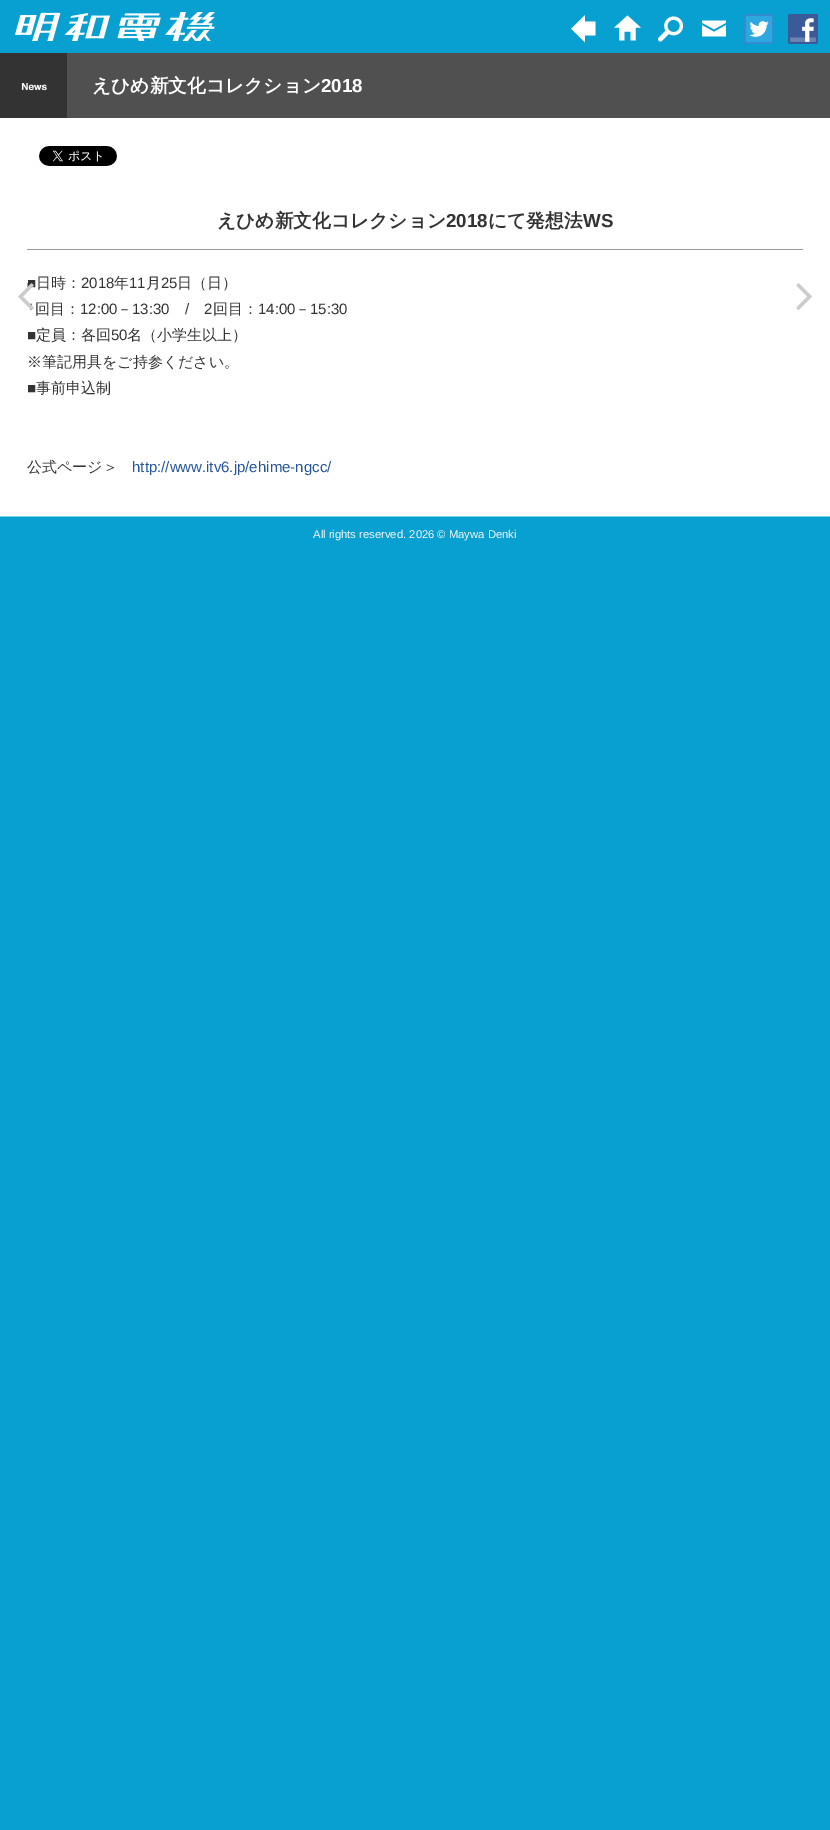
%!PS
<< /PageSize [830 1830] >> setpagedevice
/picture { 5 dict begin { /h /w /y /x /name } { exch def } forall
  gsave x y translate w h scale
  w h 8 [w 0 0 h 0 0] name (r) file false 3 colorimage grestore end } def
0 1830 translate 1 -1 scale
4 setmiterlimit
0.031 0.624 0.82 setrgbcolor
0 0 830 1830 rectfill
(img1.rgb) 15 12 200 29 picture
(img2.rgb) 571 15 25 28 picture
(img3.rgb) 614 15 27 26 picture
(img4.rgb) 658 16 25 26 picture
(img5.rgb) 702 20 24 17 picture
(img6.rgb) 744 14 30 30 picture
(img7.rgb) 788 14 30 30 picture
0.314 setgray
67 53 763 65 rectfill
(img8.rgb) 0 53 67 65 picture
/WenQuanYiZenHei-Bold [18.75 0 0 -18.75 0 0] selectfont
1 setgray
92 92 moveto (えひめ新文化コレクション) show
/LiberationSans-Bold [18.75 0 0 -18.75 0 0] selectfont
321 92 moveto (2018) show
0 118 830 398 rectfill
(img9.rgb) 39 146 78 20 picture
0.6 setgray
27 249 776 1 rectfill
/WenQuanYiZenHei-Bold [18.75 0 0 -18.75 0 0] selectfont
0.2 setgray
217 227 moveto (えひめ新文化コレクション) show
/LiberationSans-Bold [18.75 0 0 -18.75 0 0] selectfont
446 227 moveto (2018) show
/WenQuanYiZenHei-Bold [18.75 0 0 -18.75 0 0] selectfont
488 227 moveto (にて発想法) show
/LiberationSans-Bold [18.75 0 0 -18.75 0 0] selectfont
583 227 moveto (WS) show
/LiberationSans-Regular [15 0 0 -15 0 0] selectfont
27 288 moveto (■) show
/WenQuanYiZenHei-Medium [15 0 0 -15 0 0] selectfont
36 288 moveto (日時：) show
/LiberationSans-Regular [15 0 0 -15 0 0] selectfont
81 288 moveto (2018) show
/WenQuanYiZenHei-Medium [15 0 0 -15 0 0] selectfont
114 288 moveto (年) show
/LiberationSans-Regular [15 0 0 -15 0 0] selectfont
129 288 moveto (11) show
/WenQuanYiZenHei-Medium [15 0 0 -15 0 0] selectfont
146 288 moveto (月) show
/LiberationSans-Regular [15 0 0 -15 0 0] selectfont
161 288 moveto (25) show
/WenQuanYiZenHei-Medium [15 0 0 -15 0 0] selectfont
177 288 moveto (日（日）) show
35 314 moveto (回目：) show
/LiberationSans-Regular [15 0 0 -15 0 0] selectfont
80 314 moveto (12:00) show
/WenQuanYiZenHei-Medium [15 0 0 -15 0 0] selectfont
117 314 moveto (－) show
/LiberationSans-Regular [15 0 0 -15 0 0] selectfont
132 314 moveto (13:30) show
185 314 moveto (/) show
204 314 moveto (2) show
/WenQuanYiZenHei-Medium [15 0 0 -15 0 0] selectfont
213 314 moveto (回目：) show
/LiberationSans-Regular [15 0 0 -15 0 0] selectfont
258 314 moveto (14:00) show
/WenQuanYiZenHei-Medium [15 0 0 -15 0 0] selectfont
295 314 moveto (－) show
/LiberationSans-Regular [15 0 0 -15 0 0] selectfont
310 314 moveto (15:30) show
27 340 moveto (■) show
/WenQuanYiZenHei-Medium [15 0 0 -15 0 0] selectfont
36 340 moveto (定員：各回) show
/LiberationSans-Regular [15 0 0 -15 0 0] selectfont
111 340 moveto (50) show
/WenQuanYiZenHei-Medium [15 0 0 -15 0 0] selectfont
127 340 moveto (名（小学生以上）) show
27 367 moveto (※筆記用具をご持参ください。) show
/LiberationSans-Regular [15 0 0 -15 0 0] selectfont
27 393 moveto (■) show
/WenQuanYiZenHei-Medium [15 0 0 -15 0 0] selectfont
36 393 moveto (事前申込制) show
27 472 moveto (公式ページ＞) show
/LiberationSans-Regular [15 0 0 -15 0 0] selectfont
0.149 0.337 0.604 setrgbcolor
132 472 moveto (http://www.itv6.jp/ehime-ngcc/) show
(img10.rgb) 18 283 16 27 picture
(img11.rgb) 796 283 16 27 picture
0.459 0.827 0.937 setrgbcolor
0 516 830 1 rectfill
/LiberationSans-Regular [11.25 0 0 -11.25 0 0] selectfont
0.973 setgray
313 538 moveto (All rights reserved. 2026 © Maywa Denki) show
showpage
